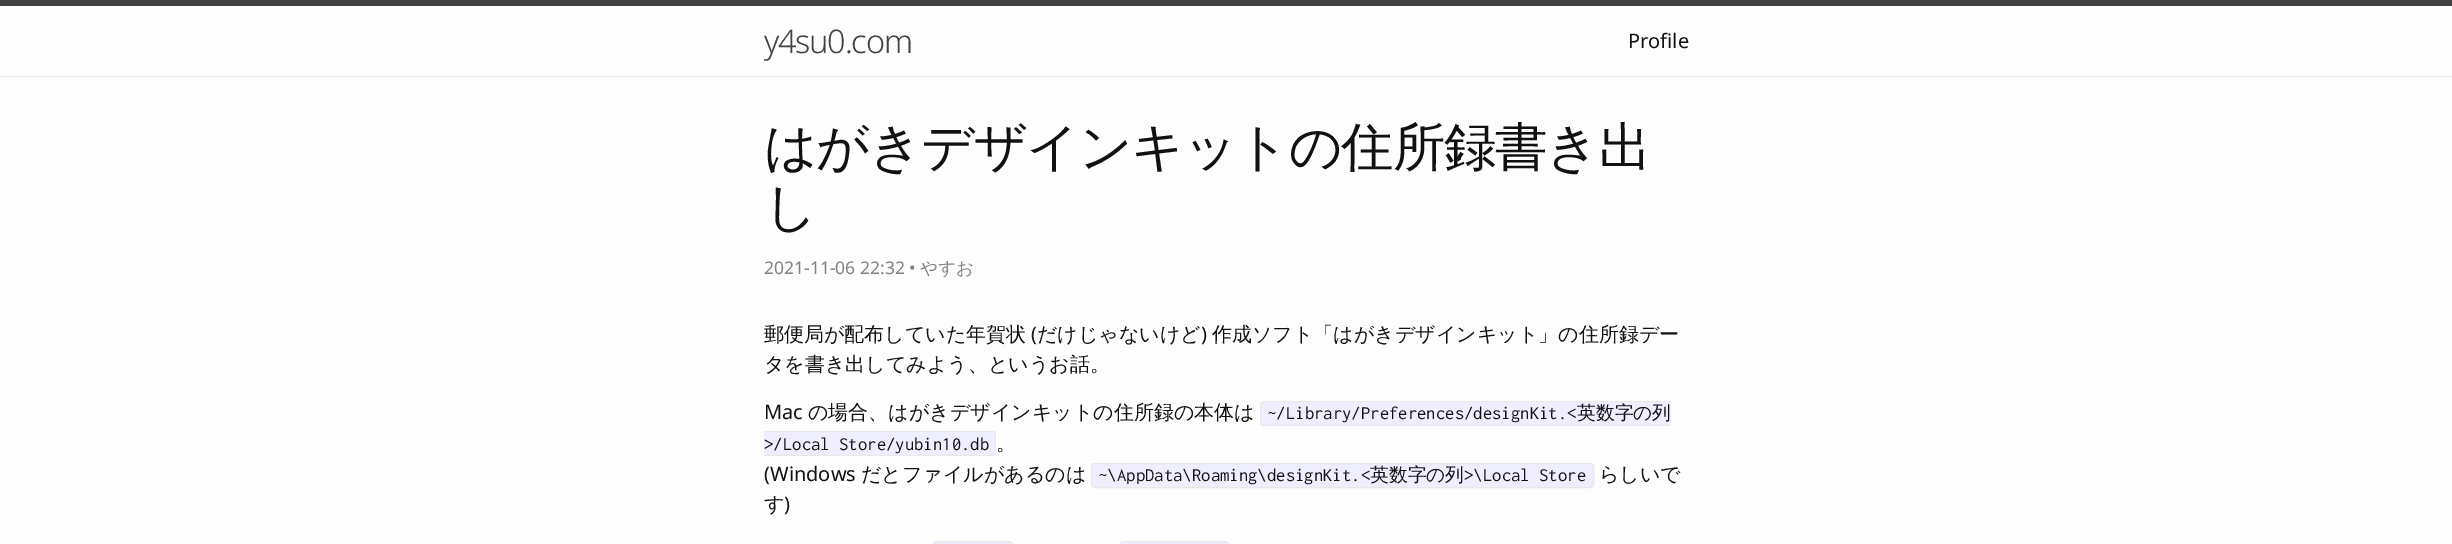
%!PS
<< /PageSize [2452 544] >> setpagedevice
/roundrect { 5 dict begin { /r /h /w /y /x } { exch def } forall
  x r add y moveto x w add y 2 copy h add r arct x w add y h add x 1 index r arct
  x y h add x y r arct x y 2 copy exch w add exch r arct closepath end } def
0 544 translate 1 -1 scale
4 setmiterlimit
0.992 setgray
0 0 2452 544 rectfill
0.259 setgray
0 0 2452 6 rectfill
0.91 setgray
0 76 2452 1 rectfill
/NotoSans-Light [32.5 0 0 -32.5 0 0] selectfont
0.259 setgray
764 53 moveto -1.25 0 (y4su0.com) ashow
/NotoSans-Regular [20 0 0 -20 0 0] selectfont
0.067 setgray
1628 48 moveto (Profile) show
/WenQuanYiZenHei-Medium [52.5 0 0 -52.5 0 0] selectfont
764 165 moveto -1.25 0 (はがきデザインキットの住所録書き出) ashow
764 225 moveto -1.25 0 (し) ashow
/NotoSans-Regular [17.5 0 0 -17.5 0 0] selectfont
0.51 setgray
764 274 moveto (2021-11-06 22:32 •) show
/WenQuanYiZenHei-Medium [17.5 0 0 -17.5 0 0] selectfont
920 274 moveto (やすお) show
/WenQuanYiZenHei-Medium [20 0 0 -20 0 0] selectfont
0.067 setgray
764 341 moveto (郵便局が配布していた年賀状) show
/NotoSans-Regular [20 0 0 -20 0 0] selectfont
1031 341 moveto (\() show
/WenQuanYiZenHei-Medium [20 0 0 -20 0 0] selectfont
1037 341 moveto (だけじゃないけど) show
/NotoSans-Regular [20 0 0 -20 0 0] selectfont
1201 341 moveto (\)) show
/WenQuanYiZenHei-Medium [20 0 0 -20 0 0] selectfont
1212 341 moveto (作成ソフト「はがきデザインキット」の住所録デー) show
764 371 moveto (タを書き出してみよう、というお話。) show
/NotoSans-Regular [20 0 0 -20 0 0] selectfont
764 419 moveto (Mac) show
/WenQuanYiZenHei-Medium [20 0 0 -20 0 0] selectfont
808 419 moveto (の場合、はがきデザインキットの住所録の本体は) show
0.933 0.933 1 setrgbcolor
newpath 1264 401 moveto 1671 401 lineto 1671 426 lineto 1264 426 lineto 1262 426 1260 424 1260 422 curveto 1260 405 lineto 1260 403 1262 401 1264 401 curveto closepath fill
0.91 setgray
newpath 1264 401 moveto 1671 401 lineto 1671 426 lineto 1264 426 lineto 1262 426 1260 425 1260 422 curveto 1260 405 lineto 1260 403 1262 401 1264 401 curveto closepath 1264 402 moveto 1671 402 lineto 1671 425 lineto 1264 425 lineto 1260 425 1261 416 1261 414 curveto 1261 412 1260 402 1264 402 curveto closepath eofill
/Inconsolata-Regular [18.75 0 0 -18.75 0 0] selectfont
0.067 setgray
1267 419 moveto (~/Library/Preferences/designKit.<) show
/WenQuanYiZenHei-Medium [18.75 0 0 -18.75 0 0] selectfont
1577 419 moveto (英数字の列) show
0.933 0.933 1 setrgbcolor
newpath 764 431 moveto 992 431 lineto 994 431 996 433 996 435 curveto 996 452 lineto 996 454 994 456 992 456 curveto 764 456 lineto closepath fill
0.91 setgray
newpath 764 431 moveto 992 431 lineto 995 431 996 433 996 435 curveto 996 452 lineto 996 455 995 456 992 456 curveto 764 456 lineto closepath 764 432 moveto 992 432 lineto 994 432 995 434 995 435 curveto 995 452 lineto 995 454 994 455 992 455 curveto 764 455 lineto closepath eofill
/Inconsolata-Regular [18.75 0 0 -18.75 0 0] selectfont
0.067 setgray
764 450 moveto (>/Local Store/yubin10.db) show
/WenQuanYiZenHei-Medium [20 0 0 -20 0 0] selectfont
996 450 moveto (。) show
/NotoSans-Regular [20 0 0 -20 0 0] selectfont
764 481 moveto (\(Windows) show
/WenQuanYiZenHei-Medium [20 0 0 -20 0 0] selectfont
861 481 moveto (だとファイルがあるのは) show
0.933 0.933 1 setrgbcolor
1091.5 463.5 502 24 3.5 roundrect gsave fill grestore
0.91 setgray
stroke
/Inconsolata-Regular [18.75 0 0 -18.75 0 0] selectfont
0.067 setgray
1098 481 moveto (~\\AppData\\Roaming\\designKit.<) show
/WenQuanYiZenHei-Medium [18.75 0 0 -18.75 0 0] selectfont
1370 481 moveto (英数字の列) show
/Inconsolata-Regular [18.75 0 0 -18.75 0 0] selectfont
1464 481 moveto (>\\Local Store) show
/WenQuanYiZenHei-Medium [20 0 0 -20 0 0] selectfont
1599 481 moveto (らしいで) show
764 511 moveto (す) show
/NotoSans-Regular [20 0 0 -20 0 0] selectfont
784 511 moveto (\)) show
0.933 0.933 1 setrgbcolor
933.5 541.5 79 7 3.5 roundrect gsave fill grestore
0.91 setgray
stroke
0.933 0.933 1 setrgbcolor
1120.5 541.5 108 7 3.5 roundrect gsave fill grestore
0.91 setgray
stroke
showpage
